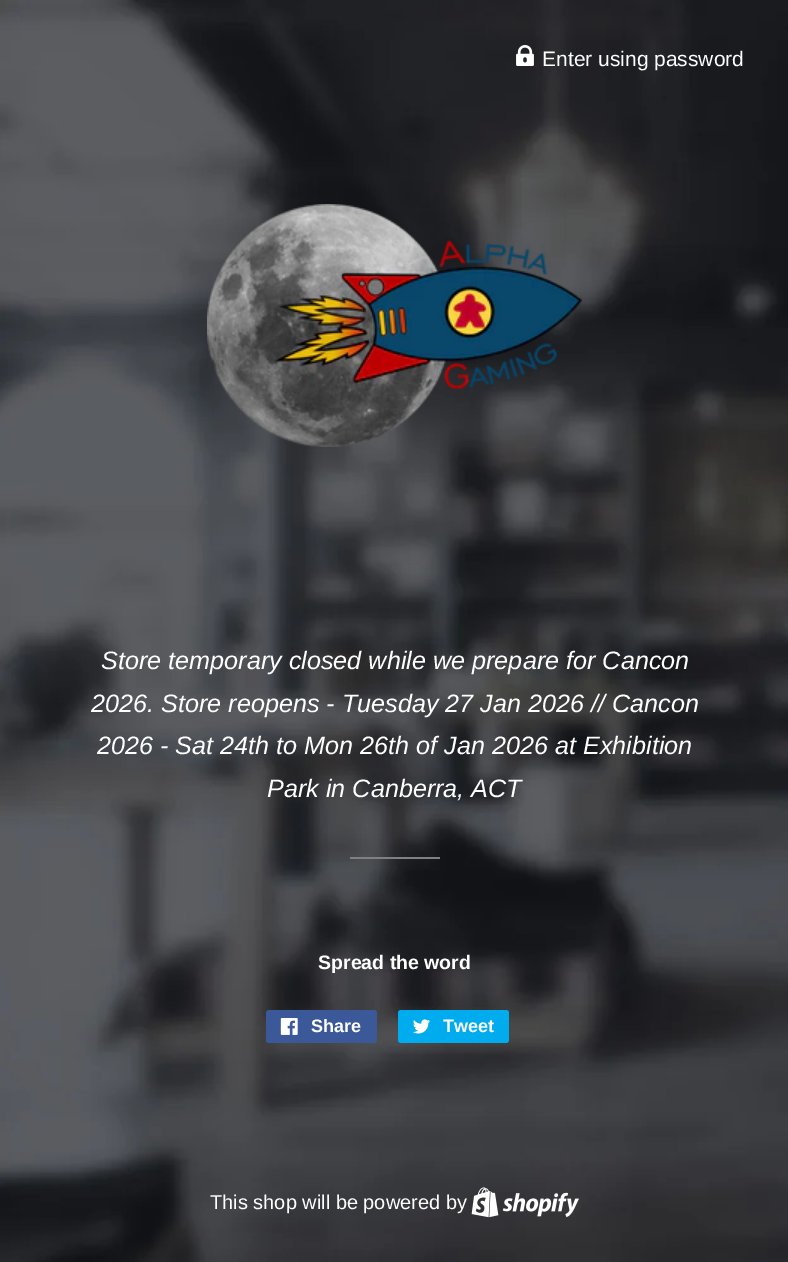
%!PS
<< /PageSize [788 1262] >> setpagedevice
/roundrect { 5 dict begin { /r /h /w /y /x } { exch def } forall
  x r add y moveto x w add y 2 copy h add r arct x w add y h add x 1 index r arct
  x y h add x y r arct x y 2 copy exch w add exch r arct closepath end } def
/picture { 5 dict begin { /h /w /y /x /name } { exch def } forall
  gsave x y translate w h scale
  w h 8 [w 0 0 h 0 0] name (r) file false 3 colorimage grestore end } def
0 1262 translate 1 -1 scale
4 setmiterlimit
1 setgray
0 0 788 1262 rectfill
(img1.rgb) 0 0 788 1262 picture
(img2.rgb) 516 45 18 21 picture
/LiberationSans-Regular [21 0 0 -21 0 0] selectfont
542 66 moveto (Enter using password) show
(img3.rgb) 207 204 375 243 picture
/LiberationSans-Italic [25.2 0 0 -25.2 0 0] selectfont
101 669 moveto (Store temporary closed while we prepare for Cancon) show
91 712 moveto (2026. Store reopens - Tuesday 27 Jan 2026 // Cancon) show
97 754 moveto (2026 - Sat 24th to Mon 26th of Jan 2026 at Exhibition) show
267 797 moveto (Park in Canberra, ACT) show
0.502 setgray
350 857 90 2 rectfill
/LiberationSans-Bold [19.5 0 0 -19.5 0 0] selectfont
1 setgray
318 969 moveto (Spread the word) show
0.231 0.349 0.596 setrgbcolor
266 1010 111 33 3 roundrect fill
(img4.rgb) 280 1018 18 17 picture
/LiberationSans-Bold [18 0 0 -18 0 0] selectfont
1 setgray
311 1032 moveto (Share) show
0 0.675 0.929 setrgbcolor
398 1010 111 33 3 roundrect fill
(img5.rgb) 413 1019 17 15 picture
1 setgray
443 1032 moveto (Tweet) show
/LiberationSans-Regular [20 0 0 -20 0 0] selectfont
210 1209 moveto (This shop will be powered by) show
(img6.rgb) 471 1187 108 31 picture
showpage
